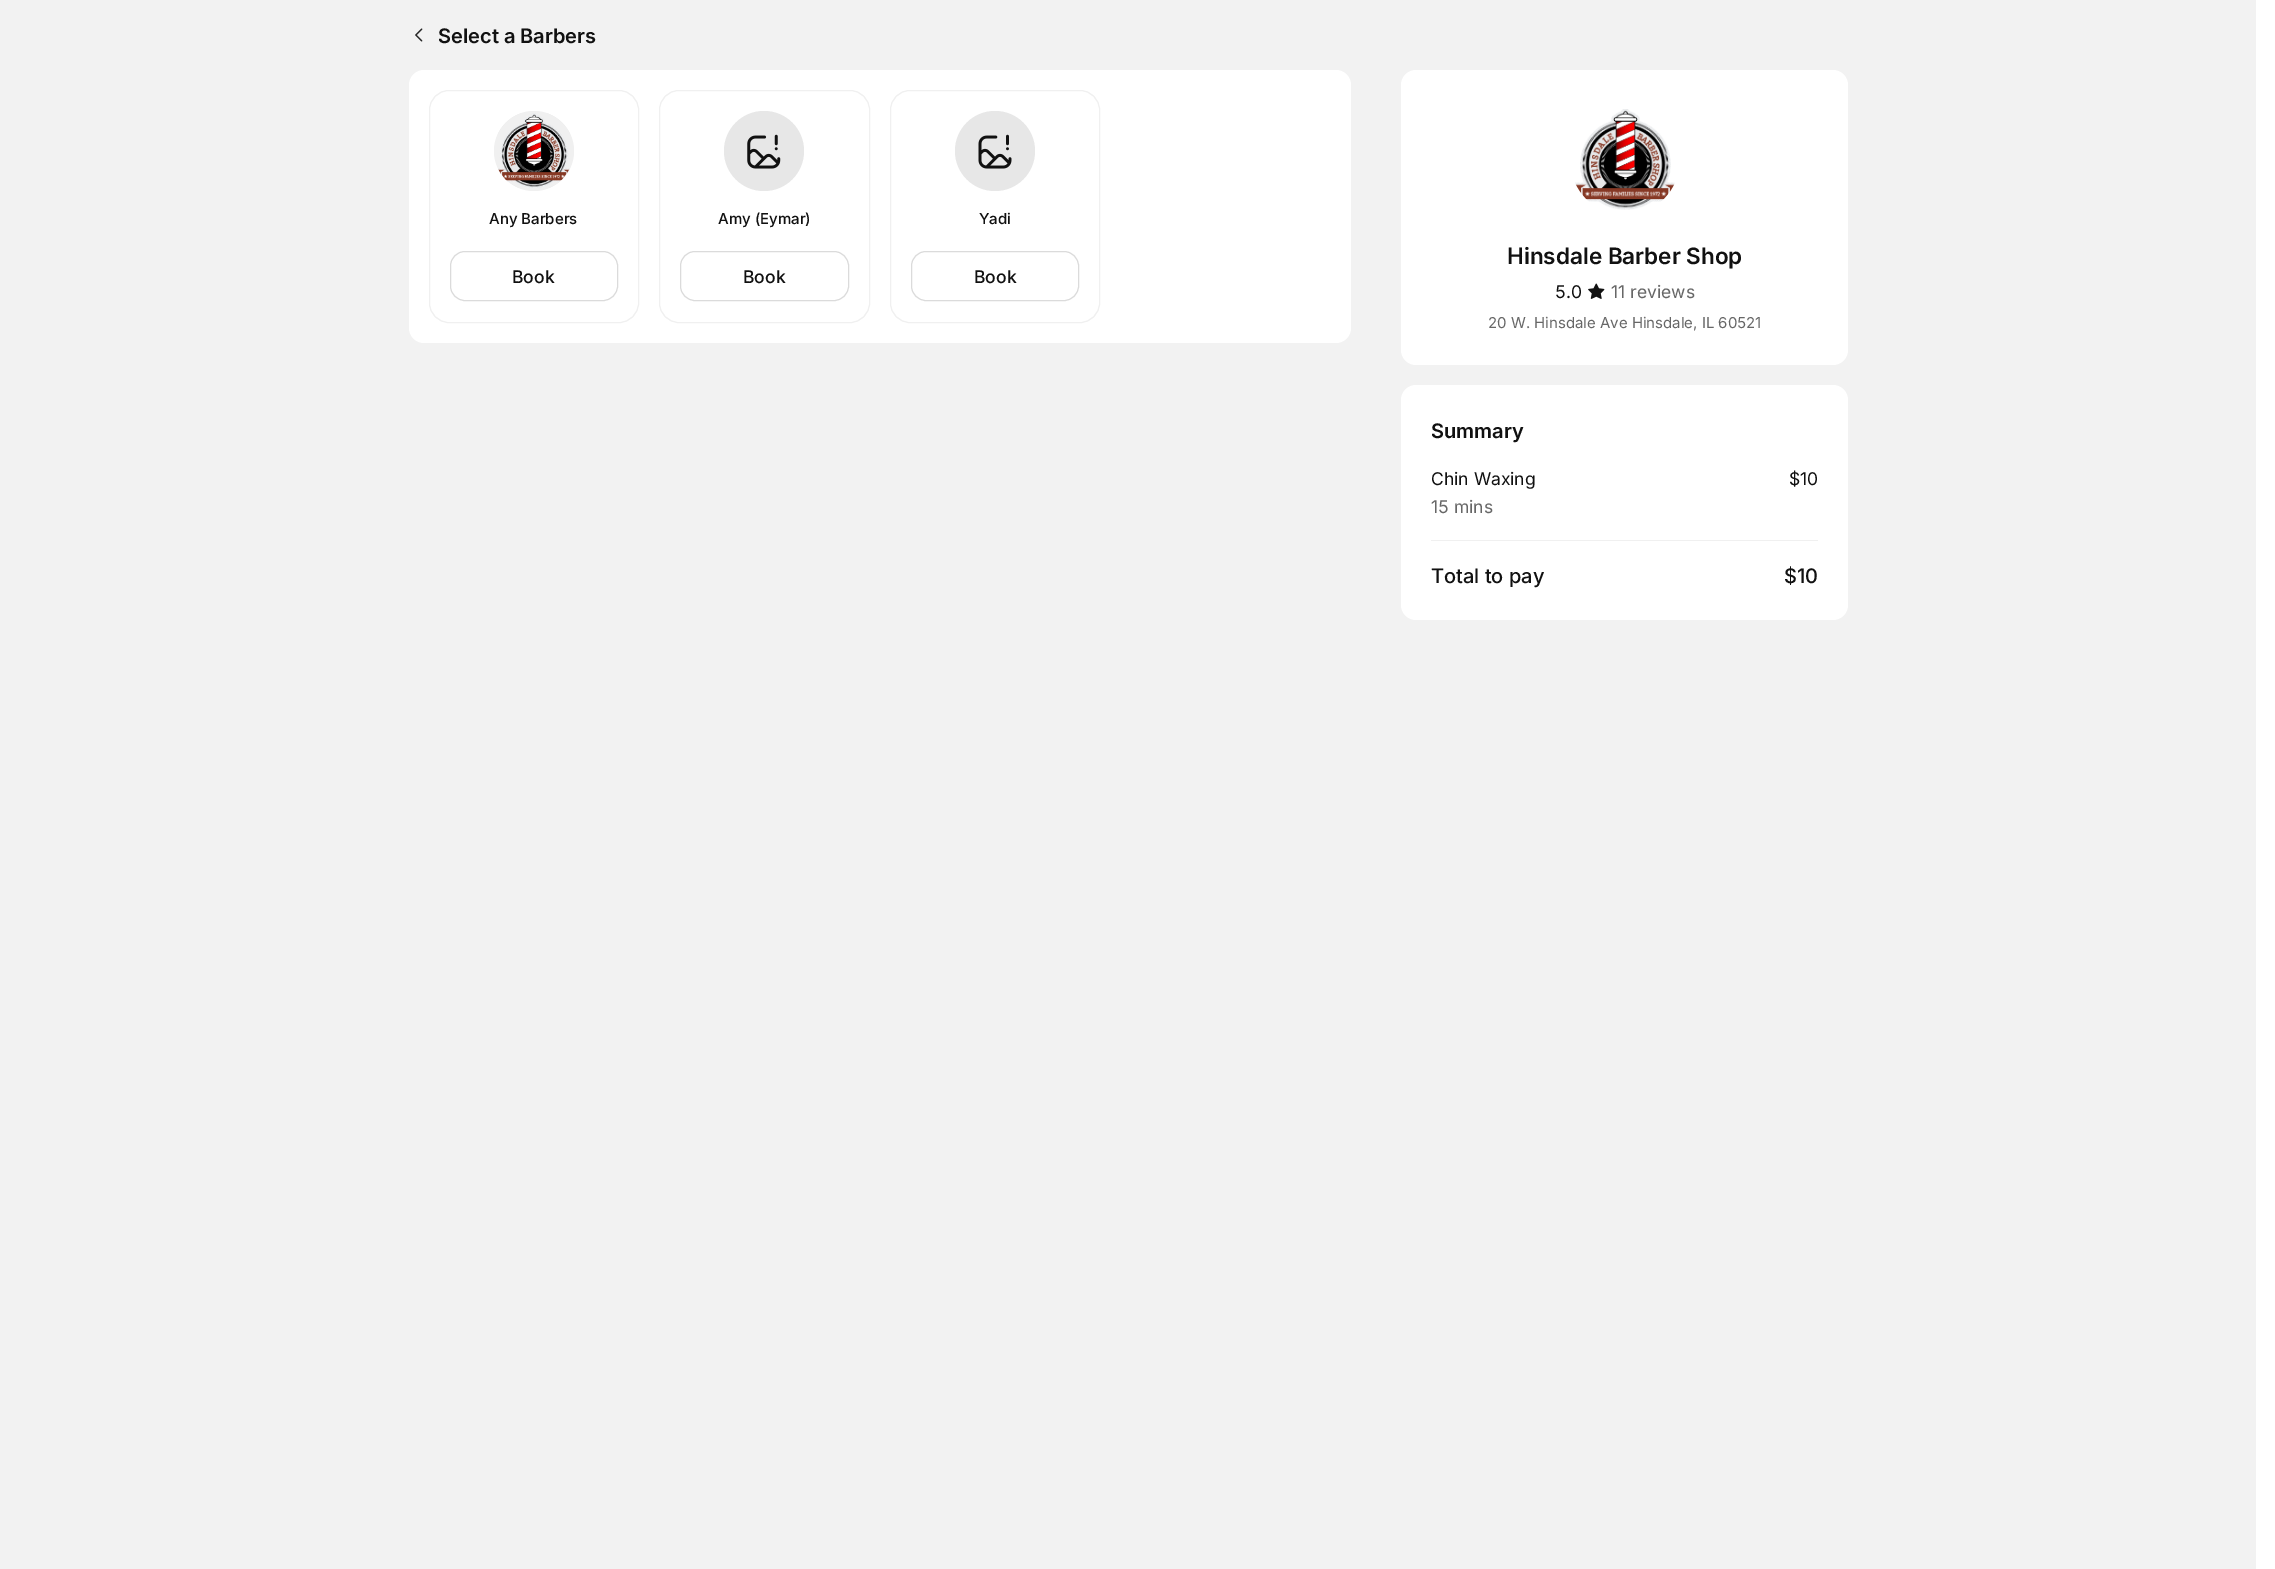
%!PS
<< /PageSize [2275 1569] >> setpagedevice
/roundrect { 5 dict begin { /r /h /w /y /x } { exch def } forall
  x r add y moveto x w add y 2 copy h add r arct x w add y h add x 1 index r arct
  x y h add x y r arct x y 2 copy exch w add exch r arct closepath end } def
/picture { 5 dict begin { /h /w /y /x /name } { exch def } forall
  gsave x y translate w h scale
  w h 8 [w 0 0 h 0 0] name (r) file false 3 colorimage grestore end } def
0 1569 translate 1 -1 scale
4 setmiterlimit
1 setgray
0 0 2275 1569 rectfill
0.949 setgray
0 0 2256 1569 rectfill
(img1.rgb) 415 28 8 14 picture
/Inter-SemiBold [20 0 0 -20 0 0] selectfont
0.067 setgray
438 43 moveto (Select a Barbers) show
1 setgray
409 70 942 273 15 roundrect fill
0.941 setgray
429.5 90.5 209 232 19.5 roundrect stroke
newpath 534 151 40 0 360 arc closepath fill
(img2.rgb) 498 113 72 75 picture
/Inter-Medium [15 0 0 -15 0 0] selectfont
0.067 setgray
489 224 moveto (Any Barbers) show
0.859 setgray
450.5 251.5 167 49 14.5 roundrect stroke
/Inter-Medium [17.5 0 0 -17.5 0 0] selectfont
0.067 setgray
512 283 moveto (Book) show
0.941 setgray
659.5 90.5 210 232 19.5 roundrect stroke
0.906 setgray
newpath 764 151 40 0 360 arc closepath fill
(img3.rgb) 747 134 34 35 picture
/Inter-Medium [15 0 0 -15 0 0] selectfont
0.067 setgray
718 224 moveto (Amy \(Eymar\)) show
0.859 setgray
680.5 251.5 168 49 14.5 roundrect stroke
/Inter-Medium [17.5 0 0 -17.5 0 0] selectfont
0.067 setgray
743 283 moveto (Book) show
0.941 setgray
890.5 90.5 209 232 19.5 roundrect stroke
0.906 setgray
newpath 995 151 40 0 360 arc closepath fill
(img4.rgb) 978 134 34 35 picture
/Inter-Medium [15 0 0 -15 0 0] selectfont
0.067 setgray
979 224 moveto (Yadi) show
0.859 setgray
911.5 251.5 167 49 14.5 roundrect stroke
/Inter-Medium [17.5 0 0 -17.5 0 0] selectfont
0.067 setgray
974 283 moveto (Book) show
1 setgray
1401 70 447 295 15 roundrect fill
(img5.rgb) 1575 109 100 101 picture
/Inter-SemiBold [22.5 0 0 -22.5 0 0] selectfont
0.067 setgray
1507 264 moveto (Hinsdale Barber Shop) show
/Inter-Regular [17.5 0 0 -17.5 0 0] selectfont
1555 298 moveto (5.0) show
(img6.rgb) 1588 283 17 16 picture
0.404 setgray
1611 298 moveto (11 reviews) show
/Inter-Regular [15 0 0 -15 0 0] selectfont
1488 328 moveto (20 W. Hinsdale Ave Hinsdale, IL 60521) show
1 setgray
1401 385 447 235 15 roundrect fill
/Inter-SemiBold [20 0 0 -20 0 0] selectfont
0.067 setgray
1431 438 moveto (Summary) show
/Inter-Regular [17.5 0 0 -17.5 0 0] selectfont
1431 485 moveto (Chin Waxing) show
0.404 setgray
1431 513 moveto (15 mins) show
0.067 setgray
1789 485 moveto ($10) show
0.941 setgray
1431 540 387 1 rectfill
/Inter-Medium [20 0 0 -20 0 0] selectfont
0.067 setgray
1431 583 moveto (Total to pay) show
1784 583 moveto ($10) show
showpage
